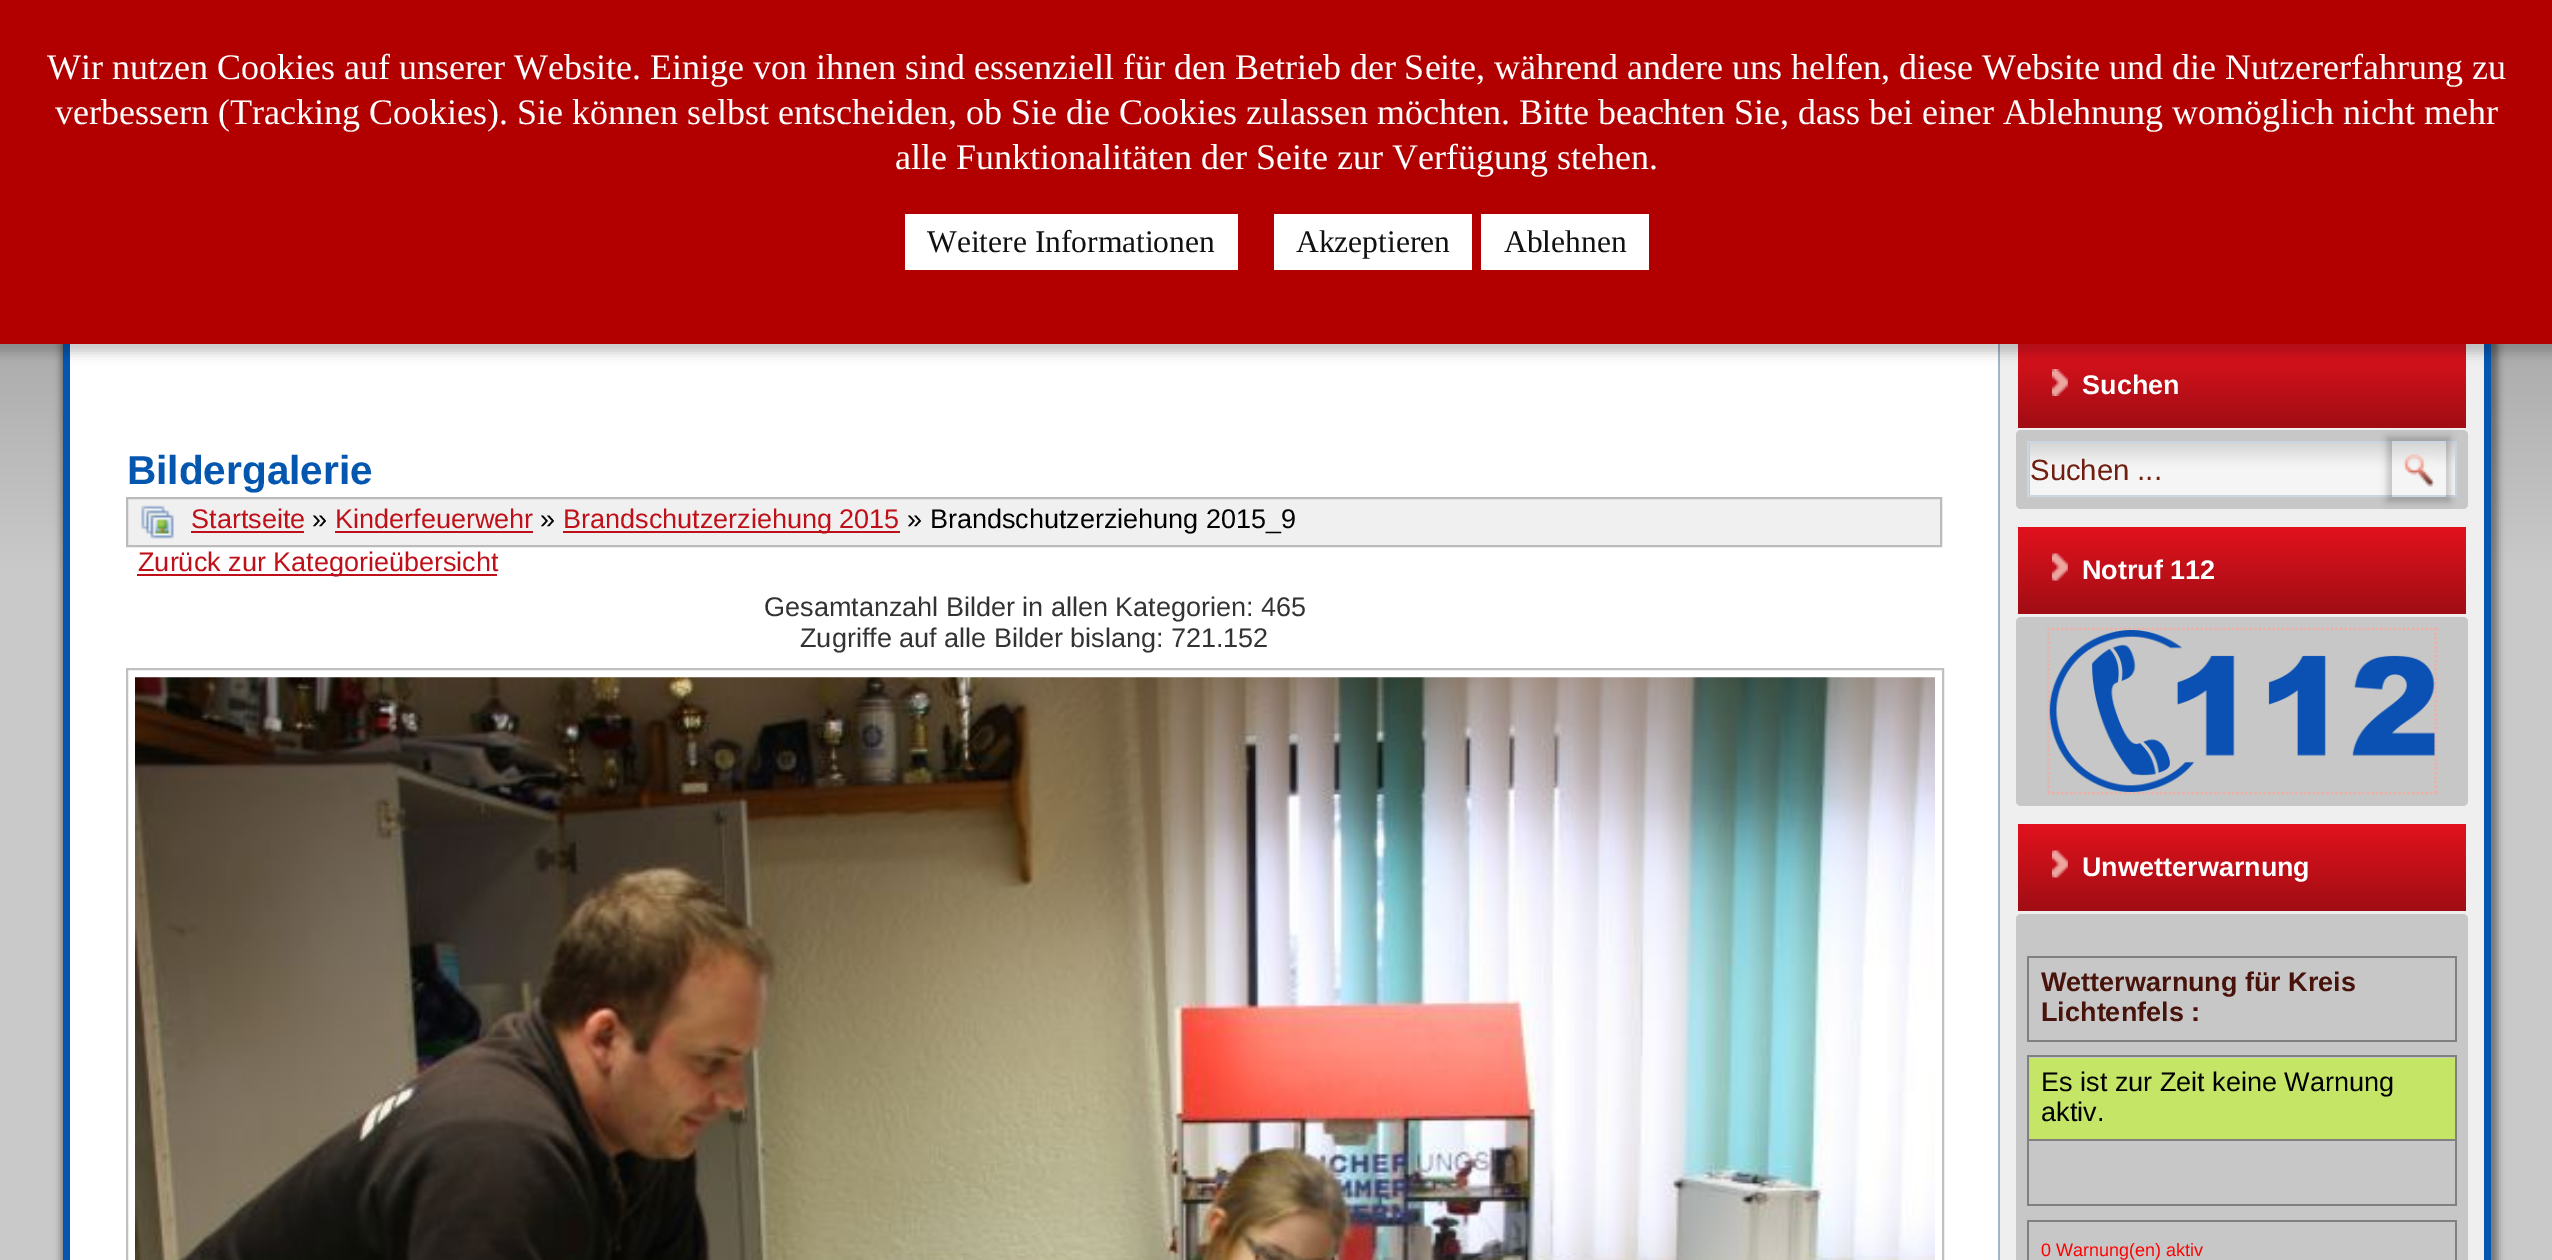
%!PS
<< /PageSize [2552 1260] /PageUsesTransparency true >> setpagedevice
/alpha { dup .setfillconstantalpha .setstrokeconstantalpha } def
/roundrect { 5 dict begin { /r /h /w /y /x } { exch def } forall
  x r add y moveto x w add y 2 copy h add r arct x w add y h add x 1 index r arct
  x y h add x y r arct x y 2 copy exch w add exch r arct closepath end } def
/shadow { 12 dict begin { /a /b /q /h /w /y /x } { exch def } forall gsave /was 0 def
  9 -2 -9 { dup b mul 4 div /e exch def 1 sub .425 mul 2.718 exch exp 1 add a .99 .min exch div /now exch def
    1 1 now sub 1 was sub div sub alpha /was now def
    w h .min e 2 mul add 0 gt { x e sub y e sub w e 2 mul add h e 2 mul add
      q e add b .6 mul add w h .min 2 div e add .min 0 .max roundrect fill } if } for grestore end } def
/picture { 5 dict begin { /h /w /y /x /name } { exch def } forall
  gsave x y translate w h scale
  w h 8 [w 0 0 h 0 0] name (r) file false 3 colorimage grestore end } def
0 .pushpdf14devicefilter
0 1260 translate 1 -1 scale
4 setmiterlimit
1 setgray
0 0 2552 1260 rectfill
gsave newpath 0 344 moveto 2552 344 lineto 2552 1260 lineto 0 1260 lineto closepath clip newpath
<< /ShadingType 2 /ColorSpace /DeviceRGB /Coords [1277 0 1277 1260] /Extend [true true] /Function << /FunctionType 3 /Domain [0 1] /Functions [<< /FunctionType 2 /Domain [0 1] /C0 [0.502 0.502 0.502] /C1 [0.788 0.788 0.788] /N 1 >> << /FunctionType 2 /Domain [0 1] /C0 [0.788 0.788 0.788] /C1 [0.788 0.788 0.788] /N 1 >>] /Bounds [0.45] /Encode [0 1 0 1] >> >> shfill grestore
0 setgray
61 20 2437 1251 0 3.5 0.4 shadow
1 setgray
70 344 1928 916 rectfill
0.016 0.337 0.686 setrgbcolor
2484 344 7 916 rectfill
63 344 7 916 rectfill
0.937 setgray
2000 344 484 916 rectfill
0.639 0.706 0.784 setrgbcolor
1998 344 2 916 rectfill
gsave newpath 2018 344 moveto 2466 344 lineto 2466 428 lineto 2018 428 lineto closepath clip newpath
<< /ShadingType 2 /ColorSpace /DeviceRGB /Coords [2242 342 2242 428] /Extend [true true] /Function << /FunctionType 2 /Domain [0 1] /C0 [0.886 0.071 0.114] /C1 [0.627 0.051 0.078] /N 1 >> >> shfill grestore
(img3.rgb) 2052 369 16 27 picture
0 setgray
-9 -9 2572 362 0 5.5 0.21 shadow
0.698 0 0 setrgbcolor
0 0 2552 344 rectfill
/LiberationSerif-Regular [36 0 0 -36 0 0] selectfont
1 setgray
47 79 moveto (Wir nutzen Cookies auf unserer Website. Einige von ihnen sind essenziell für den Betrieb der Seite, während andere uns helfen, diese Website und die Nutzererfahrung zu) show
55 124 moveto (verbessern \(Tracking Cookies\). Sie können selbst entscheiden, ob Sie die Cookies zulassen möchten. Bitte beachten Sie, dass bei einer Ablehnung womöglich nicht mehr) show
895 169 moveto (alle Funktionalitäten der Seite zur Verfügung stehen.) show
905 214 333 56 rectfill
/LiberationSerif-Regular [31.5 0 0 -31.5 0 0] selectfont
0.067 setgray
927 252 moveto (Weitere Informationen) show
1 setgray
1274 214 198 56 rectfill
0.067 setgray
1296 252 moveto (Akzeptieren) show
1 setgray
1481 214 168 56 rectfill
0.067 setgray
1504 252 moveto (Ablehnen) show
/LiberationSans-Bold [40.5 0 0 -40.5 0 0] selectfont
0.016 0.337 0.686 setrgbcolor
127 484 moveto (Bildergalerie) show
0.941 setgray
newpath 127 498 moveto 1941 498 lineto 1941 546 lineto 127 546 lineto closepath gsave fill grestore
0.733 setgray
2 setlinewidth
stroke
(img1.rgb) 141 505 33 34 picture
/LiberationSans-Regular [27 0 0 -27 0 0] selectfont
0.749 0.063 0.098 setrgbcolor
191 528 moveto (Startseite) show
191 531 113 2 rectfill
0 setgray
312 528 moveto (») show
0.749 0.063 0.098 setrgbcolor
335 528 moveto (Kinderfeuerwehr) show
335 531 198 2 rectfill
0 setgray
540 528 moveto (») show
0.749 0.063 0.098 setrgbcolor
563 531 337 2 rectfill
563 528 moveto (Brandschutzerziehung 2015) show
0 setgray
907 528 moveto (» Brandschutzerziehung 2015_9) show
0.749 0.063 0.098 setrgbcolor
137 574 360 2 rectfill
138 571 moveto (Zurück zur Kategorieübersicht) show
0.2 setgray
764 616 moveto (Gesamtanzahl Bilder in allen Kategorien: 465) show
800 647 moveto (Zugriffe auf alle Bilder bislang: 721.152) show
0.753 setgray
127 669 1816 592 rectstroke
(img2.rgb) 135 677 1800 583 picture
/LiberationSans-Bold [27 0 0 -27 0 0] selectfont
1 setgray
2082 394 moveto (Suchen) show
0.78 setgray
2016 430 452 79 5 roundrect fill
gsave newpath 2030 443 moveto 2455 443 lineto 2455 495 lineto 2030 495 lineto closepath clip newpath
<< /ShadingType 2 /ColorSpace /DeviceRGB /Coords [2242 443 2242 495] /Extend [true true] /Function << /FunctionType 3 /Domain [0 1] /Functions [<< /FunctionType 2 /Domain [0 1] /C0 [0.839 0.839 0.839] /C1 [0.949 0.949 0.949] /N 1 >> << /FunctionType 2 /Domain [0 1] /C0 [0.949 0.949 0.949] /C1 [0.961 0.961 0.961] /N 1 >> << /FunctionType 2 /Domain [0 1] /C0 [0.961 0.961 0.961] /C1 [0.961 0.961 0.961] /N 1 >>] /Bounds [0.4 0.5] /Encode [0 1 0 1 0 1] >> >> shfill grestore
0.8 0.839 0.878 setrgbcolor
2028 442 428 54 rectstroke
/LiberationSans-Regular [29.25 0 0 -29.25 0 0] selectfont
0.439 0.118 0.063 setrgbcolor
2030 480 moveto (Suchen ...) show
gsave
newpath 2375 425 moveto 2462 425 lineto 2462 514 lineto 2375 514 lineto closepath 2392 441 moveto 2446 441 lineto 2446 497 lineto 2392 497 lineto closepath eoclip newpath
0 setgray
2387 437 63 65 0 3.5 0.2 shadow
grestore
(img4.rgb) 2403 454 32 33 picture
gsave newpath 2018 527 moveto 2466 527 lineto 2466 614 lineto 2018 614 lineto closepath clip newpath
<< /ShadingType 2 /ColorSpace /DeviceRGB /Coords [2242 527 2242 614] /Extend [true true] /Function << /FunctionType 2 /Domain [0 1] /C0 [0.886 0.071 0.114] /C1 [0.627 0.051 0.078] /N 1 >> >> shfill grestore
(img5.rgb) 2052 553 16 28 picture
/LiberationSans-Bold [27 0 0 -27 0 0] selectfont
1 setgray
2082 579 moveto (Notruf 112) show
0.78 setgray
2016 617 452 189 5 roundrect fill
0.949 0.678 0.631 setrgbcolor
2.2 setlinewidth
[2.25 2.25] 0 setdash
newpath 2047.5 629 moveto 2437 629 lineto stroke
newpath 2435.5 628 moveto 2435.5 794 lineto stroke
newpath 2047.5 793 moveto 2437 793 lineto stroke
newpath 2048.5 628 moveto 2048.5 794 lineto stroke
(img6.rgb) 2049 630 386 162 picture
gsave newpath 2018 824 moveto 2466 824 lineto 2466 911 lineto 2018 911 lineto closepath clip newpath
<< /ShadingType 2 /ColorSpace /DeviceRGB /Coords [2242 824 2242 911] /Extend [true true] /Function << /FunctionType 2 /Domain [0 1] /C0 [0.886 0.071 0.114] /C1 [0.627 0.051 0.078] /N 1 >> >> shfill grestore
(img5.rgb) 2052 850 16 28 picture
1 setgray
2082 876 moveto (Unwetterwarnung) show
0.78 setgray
2016 914 452 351 5 roundrect fill
0.502 setgray
2027 956 430 2 rectfill
2455 956 2 86 rectfill
2027 1040 430 2 rectfill
2027 956 2 86 rectfill
0.278 0.075 0.039 setrgbcolor
2041 991 moveto (Wetterwarnung für Kreis) show
2041 1021 moveto (Lichtenfels :) show
0.773 0.898 0.4 setrgbcolor
2030 1058 425 81 rectfill
0.502 setgray
2027 1055 430 2 rectfill
2027 1139 430 2 rectfill
2455 1139 2 67 rectfill
2455 1055 2 86 rectfill
2027 1204 430 2 rectfill
2027 1139 2 67 rectfill
2027 1055 2 86 rectfill
/LiberationSans-Regular [27 0 0 -27 0 0] selectfont
0 setgray
2041 1091 moveto (Es ist zur Zeit keine Warnung) show
2041 1121 moveto (aktiv.) show
0.502 setgray
2027 1220 430 2 rectfill
2455 1220 2 40 rectfill
2027 1220 2 40 rectfill
/LiberationSans-Regular [18 0 0 -18 0 0] selectfont
1 0 0 setrgbcolor
2041 1256 moveto (0 Warnung\(en\) aktiv) show
.poppdf14devicefilter showpage
